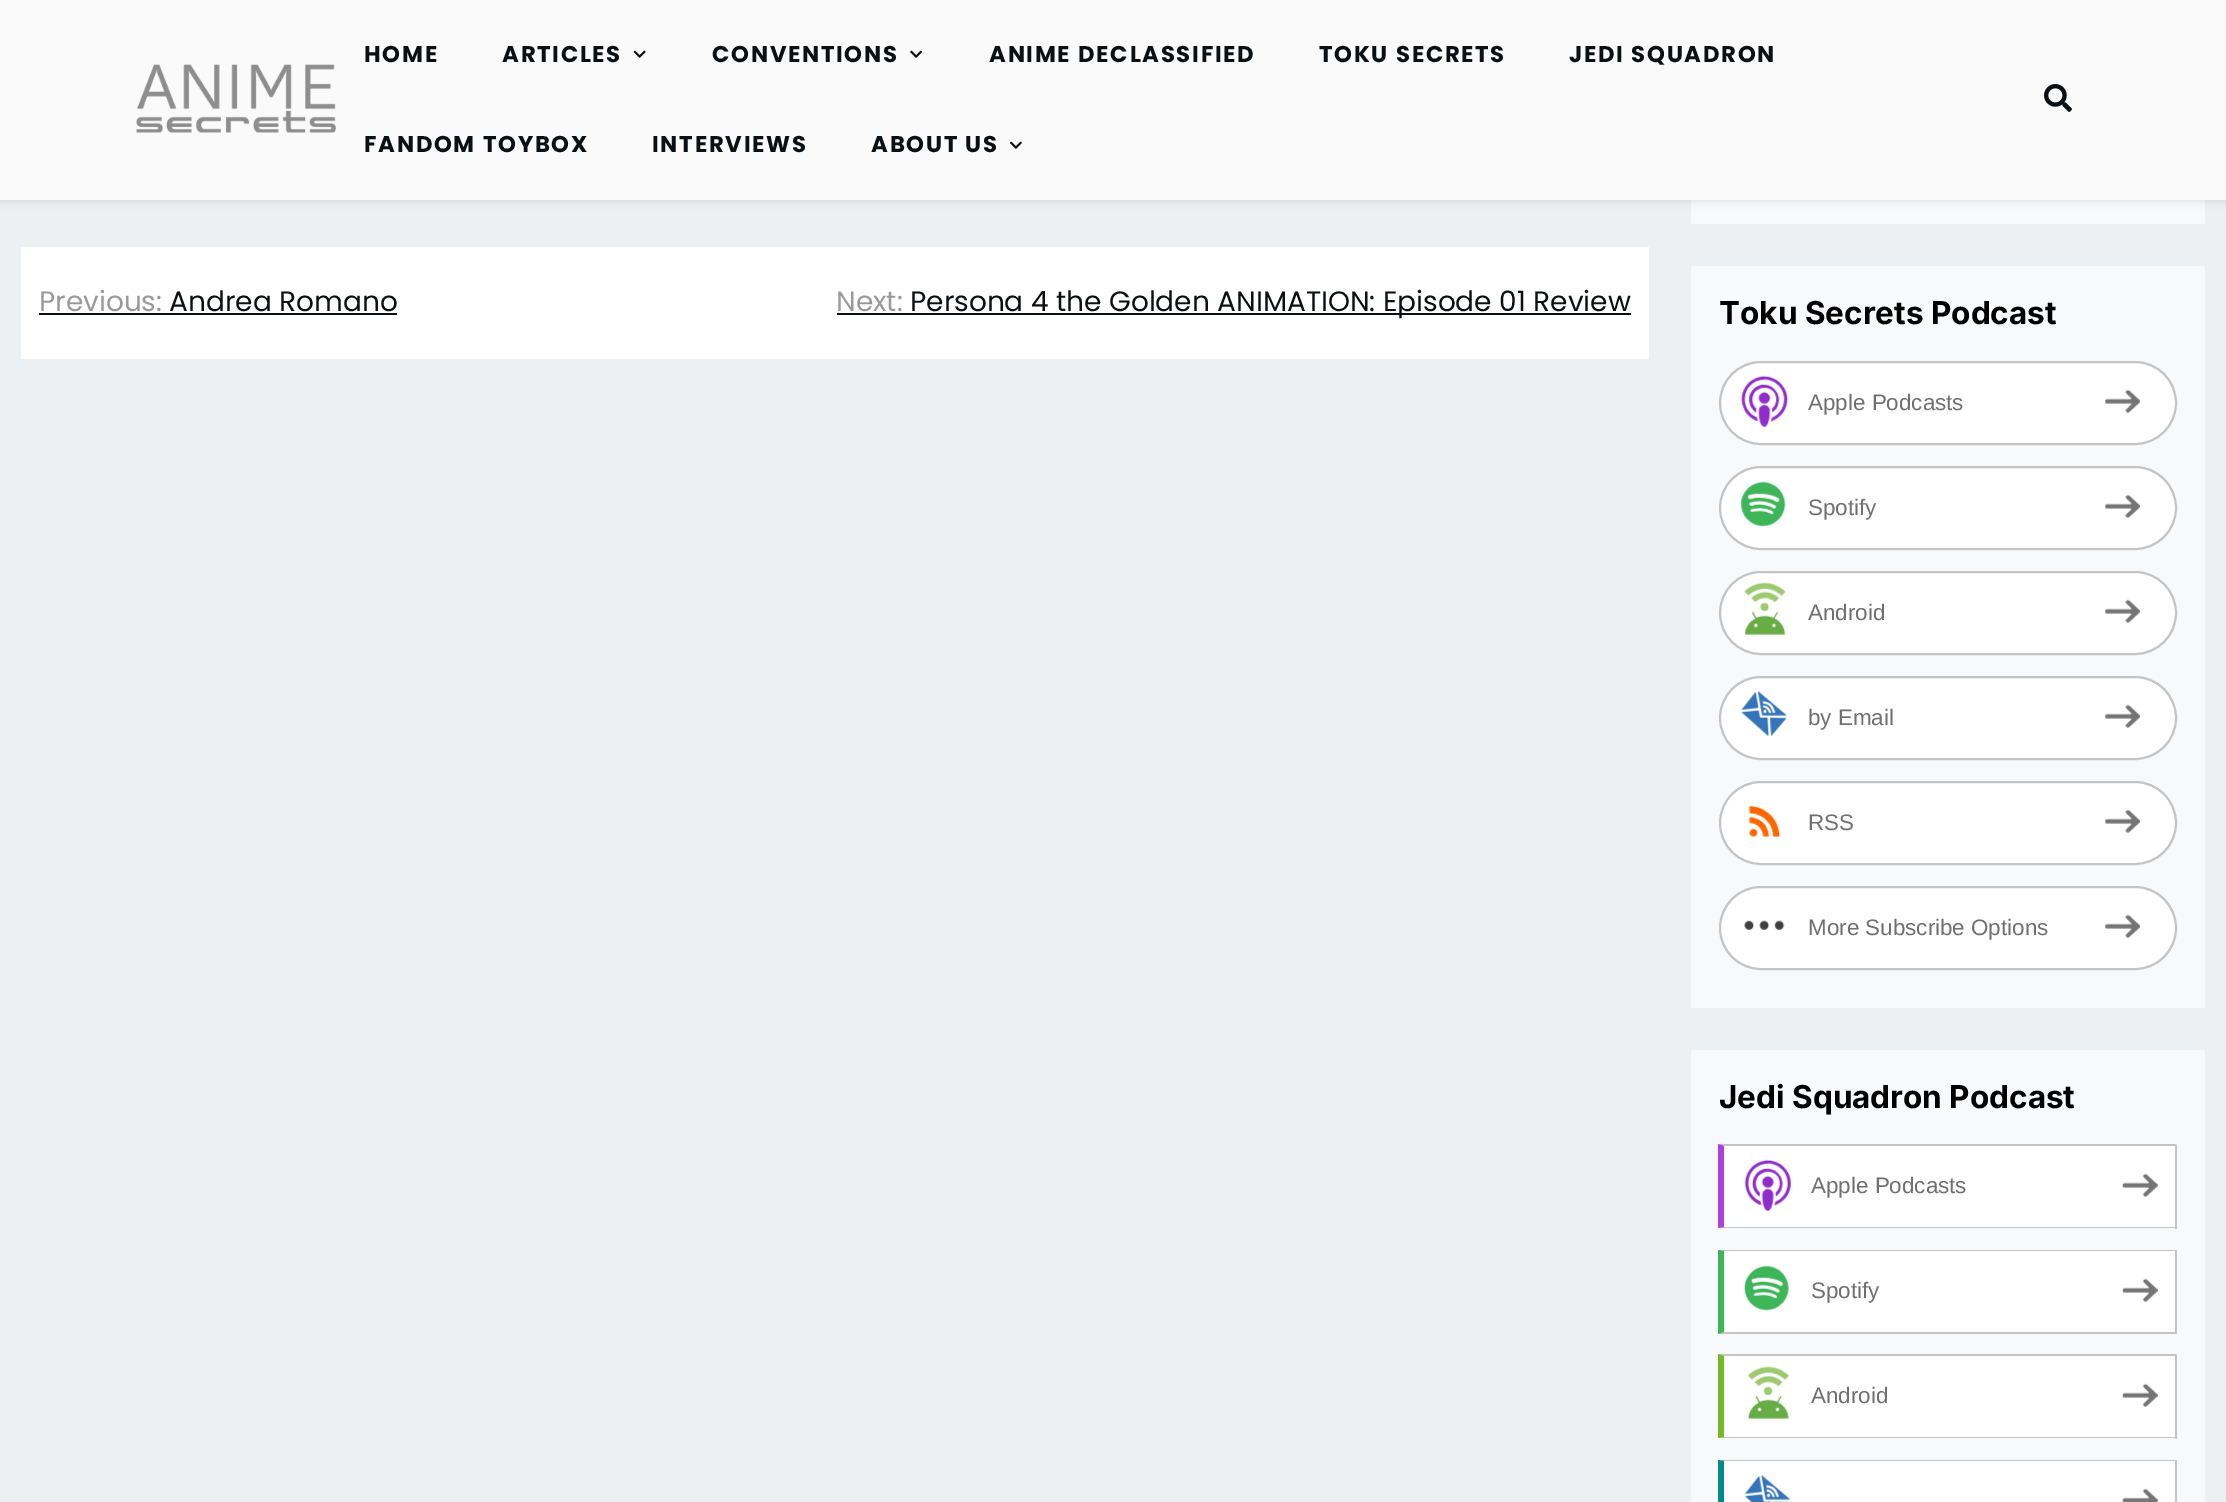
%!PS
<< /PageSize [2226 1502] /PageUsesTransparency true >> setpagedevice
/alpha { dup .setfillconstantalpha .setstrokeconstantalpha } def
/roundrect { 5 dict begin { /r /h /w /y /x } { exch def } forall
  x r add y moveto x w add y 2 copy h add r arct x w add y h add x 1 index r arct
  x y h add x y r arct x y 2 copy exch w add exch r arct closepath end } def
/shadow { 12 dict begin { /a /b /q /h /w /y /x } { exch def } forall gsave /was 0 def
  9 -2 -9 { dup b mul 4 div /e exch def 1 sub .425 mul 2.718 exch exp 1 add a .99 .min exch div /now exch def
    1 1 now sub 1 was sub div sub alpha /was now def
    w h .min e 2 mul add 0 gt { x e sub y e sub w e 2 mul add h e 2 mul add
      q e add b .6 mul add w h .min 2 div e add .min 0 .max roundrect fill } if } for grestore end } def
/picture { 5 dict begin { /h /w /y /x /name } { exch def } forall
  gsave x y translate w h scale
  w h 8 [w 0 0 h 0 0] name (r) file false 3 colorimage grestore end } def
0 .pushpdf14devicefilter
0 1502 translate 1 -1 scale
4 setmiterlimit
0.925 0.941 0.953 setrgbcolor
0 0 2226 1502 rectfill
0.973 0.976 0.98 setrgbcolor
1691 200 514 24 rectfill
0 setgray
0 0 2226 200 0 4.5 0.12 shadow
0.98 setgray
0 0 2226 200 rectfill
(img1.rgb) 136 64 200 69 picture
/Poppins-Bold [22.75 0 0 -22.75 0 0] selectfont
0.051 0.063 0.075 setrgbcolor
364 62 moveto 1.75 0 (HOME) ashow
502 62 moveto 1.75 0 (ARTICLES) ashow
(img2.rgb) 633 50 13 8 picture
712 62 moveto 1.75 0 (CONVENTIONS) ashow
(img3.rgb) 910 50 12 8 picture
989 62 moveto 1.75 0 (ANIME DECLASSIFIED) ashow
1319 62 moveto 1.75 0 (TOKU SECRETS) ashow
1569 62 moveto 1.75 0 (JEDI SQUADRON) ashow
364 152 moveto 1.75 0 (FANDOM TOYBOX) ashow
652 152 moveto 1.75 0 (INTERVIEWS) ashow
871 152 moveto 1.75 0 (ABOUT US) ashow
(img4.rgb) 1010 141 12 8 picture
(img5.rgb) 2044 84 28 28 picture
1 setgray
21 247 1628 112 rectfill
/Poppins-Regular [28 0 0 -28 0 0] selectfont
0.6 setgray
39 311 moveto (Previous:) show
0.051 0.063 0.075 setrgbcolor
39 313 358 2 rectfill
169 311 moveto (Andrea Romano) show
0.6 setgray
836 311 moveto (Next:) show
0.051 0.063 0.075 setrgbcolor
837 313 794 2 rectfill
910 311 moveto (Persona 4 the Golden ANIMATION: Episode 01 Review) show
0.973 0.976 0.98 setrgbcolor
1691 266 514 742 rectfill
/Inter-Bold [31.5 0 0 -31.5 0 0] selectfont
0 setgray
1719 324 moveto (Toku Secrets Podcast) show
1 setgray
1720 362 456 82 41 roundrect gsave fill grestore
0.769 setgray
2 setlinewidth
stroke
(img6.rgb) 1741 375 47 53 picture
/LiberationSans-Regular [22.4 0 0 -22.4 0 0] selectfont
0.439 setgray
1808 410 moveto (Apple Podcasts) show
(img7.rgb) 2105 389 35 24 picture
1 setgray
1720 467 456 82 41 roundrect gsave fill grestore
0.769 setgray
stroke
(img8.rgb) 1741 481 45 46 picture
0.439 setgray
1808 515 moveto (Spotify) show
(img7.rgb) 2105 494 35 24 picture
1 setgray
1720 572 456 82 41 roundrect gsave fill grestore
0.769 setgray
stroke
(img9.rgb) 1744 582 42 53 picture
0.439 setgray
1808 620 moveto (Android) show
(img10.rgb) 2105 599 35 24 picture
1 setgray
1720 677 456 82 41 roundrect gsave fill grestore
0.769 setgray
stroke
(img11.rgb) 1741 690 46 46 picture
0.439 setgray
1808 725 moveto (by Email) show
(img7.rgb) 2105 704 35 24 picture
1 setgray
1720 782 456 82 41 roundrect gsave fill grestore
0.769 setgray
stroke
(img12.rgb) 1749 805 32 32 picture
0.439 setgray
1808 830 moveto (RSS) show
(img7.rgb) 2105 809 35 24 picture
1 setgray
1720 887 456 82 41 roundrect gsave fill grestore
0.769 setgray
stroke
(img13.rgb) 1744 920 41 10 picture
0.439 setgray
1808 935 moveto (More Subscribe Options) show
(img7.rgb) 2105 914 35 24 picture
0.973 0.976 0.98 setrgbcolor
1691 1050 514 452 rectfill
/Inter-Bold [31.5 0 0 -31.5 0 0] selectfont
0 setgray
1719 1108 moveto (Jedi Squadron Podcast) show
1 setgray
1724 1146 451 81 rectfill
0.769 setgray
newpath 1718 1144 moveto 2177 1144 lineto 2175 1146 lineto 1724 1146 lineto closepath fill
2175 1145 2 84 rectfill
newpath 2177 1228 moveto 1718 1228 lineto 1724 1227 lineto 2175 1227 lineto closepath fill
0.671 0.259 0.875 setrgbcolor
newpath 1718 1228 moveto 1718 1144 lineto 1724 1146 lineto 1724 1227 lineto closepath fill
(img14.rgb) 1744 1159 47 53 picture
/LiberationSans-Regular [22.4 0 0 -22.4 0 0] selectfont
0.439 setgray
1811 1193 moveto (Apple Podcasts) show
(img15.rgb) 2122 1173 36 24 picture
1 setgray
1724 1251 451 81 rectfill
0.769 setgray
newpath 1718 1250 moveto 2177 1250 lineto 2175 1251 lineto 1724 1251 lineto closepath fill
2175 1250 2 84 rectfill
newpath 2177 1334 moveto 1718 1334 lineto 1724 1332 lineto 2175 1332 lineto closepath fill
0.243 0.71 0.349 setrgbcolor
newpath 1718 1334 moveto 1718 1250 lineto 1724 1251 lineto 1724 1332 lineto closepath fill
(img16.rgb) 1744 1265 45 46 picture
0.439 setgray
1811 1298 moveto (Spotify) show
(img15.rgb) 2122 1278 36 24 picture
1 setgray
1724 1356 451 81 rectfill
0.769 setgray
newpath 1718 1354 moveto 2177 1354 lineto 2175 1356 lineto 1724 1356 lineto closepath fill
2175 1355 2 84 rectfill
newpath 2177 1438 moveto 1718 1438 lineto 1724 1437 lineto 2175 1437 lineto closepath fill
0.459 0.729 0.149 setrgbcolor
newpath 1718 1438 moveto 1718 1354 lineto 1724 1356 lineto 1724 1437 lineto closepath fill
(img17.rgb) 1747 1366 42 53 picture
0.439 setgray
1811 1403 moveto (Android) show
(img15.rgb) 2122 1383 36 24 picture
1 setgray
1724 1461 451 41 rectfill
0.769 setgray
newpath 1718 1460 moveto 2177 1460 lineto 2175 1461 lineto 1724 1461 lineto closepath fill
2175 1460 2 42 rectfill
0.004 0.549 0.545 setrgbcolor
newpath 1718 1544 moveto 1718 1460 lineto 1724 1461 lineto 1724 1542 lineto closepath fill
(img18.rgb) 1744 1474 46 28 picture
(img19.rgb) 2122 1488 36 14 picture
.poppdf14devicefilter showpage
